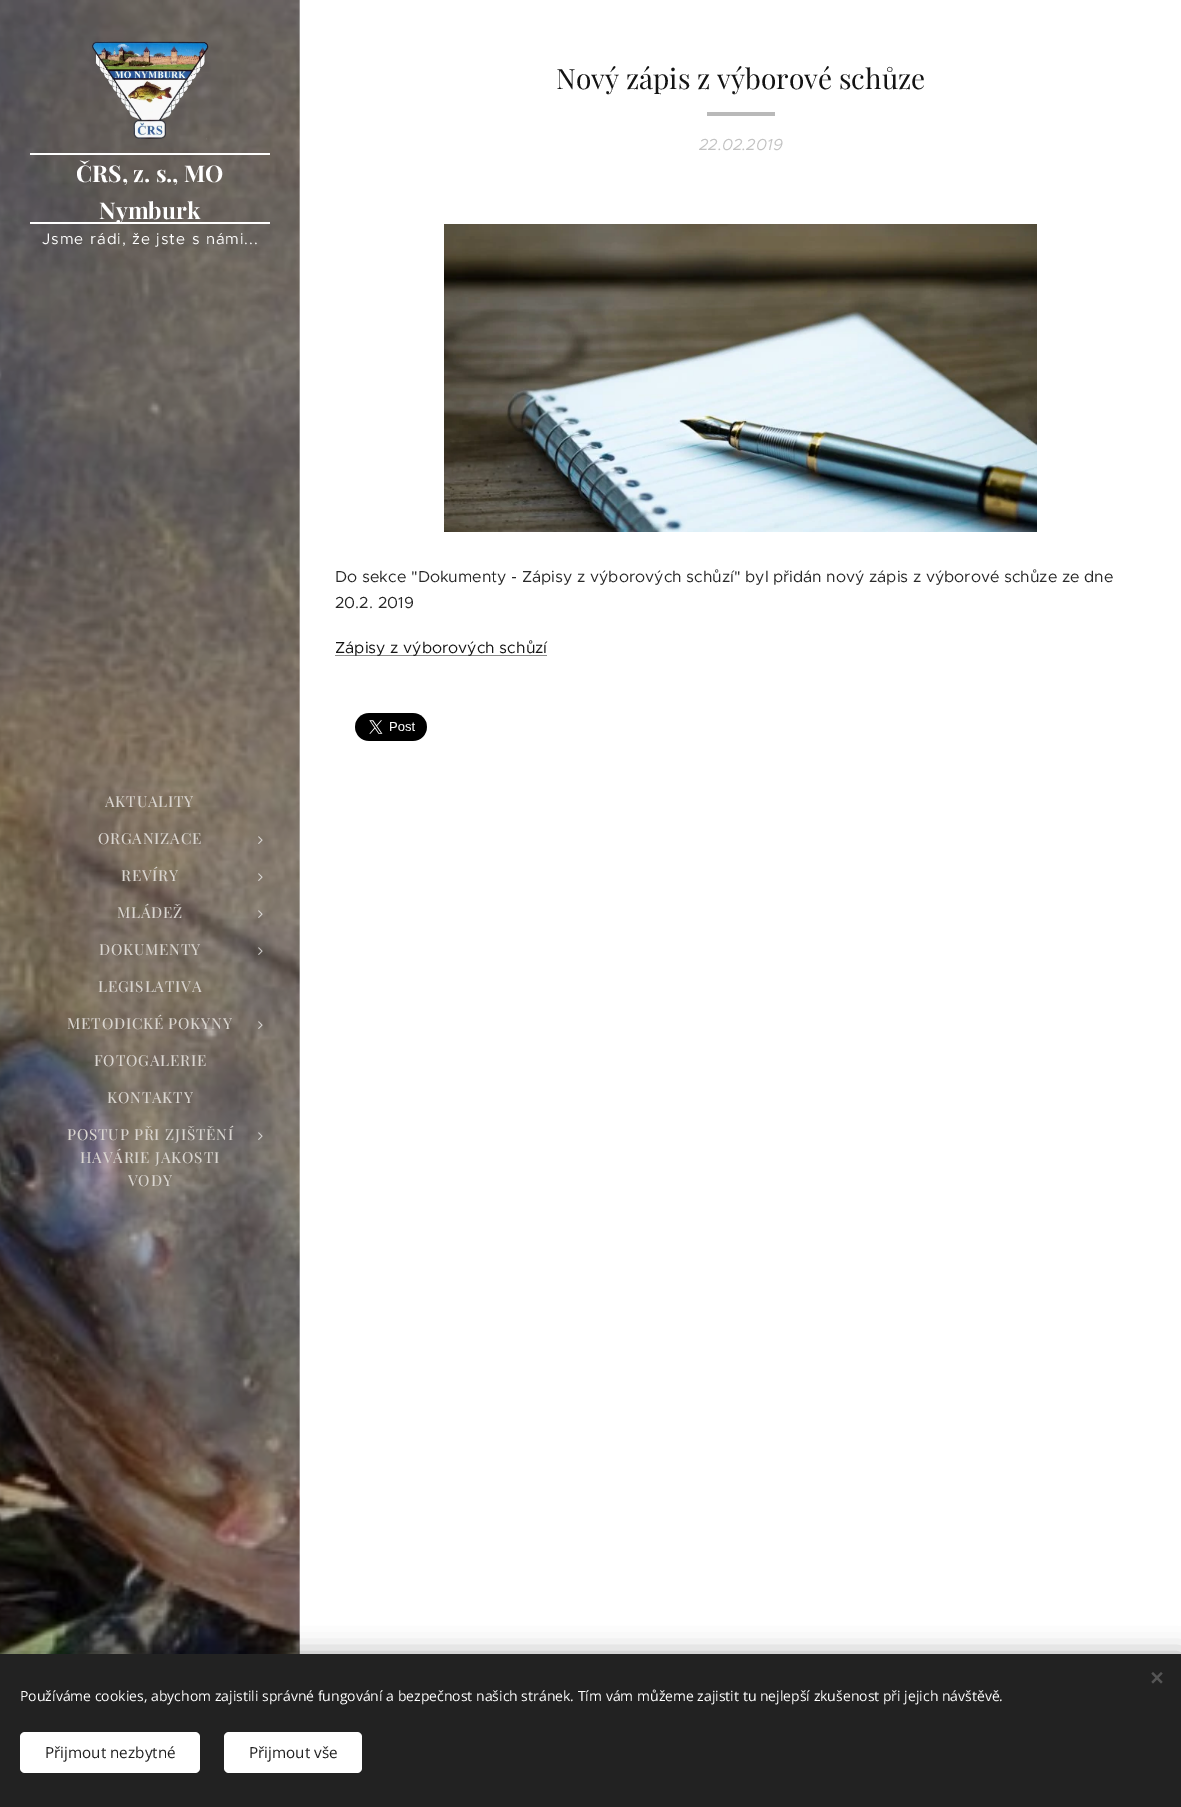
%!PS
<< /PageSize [1181 1807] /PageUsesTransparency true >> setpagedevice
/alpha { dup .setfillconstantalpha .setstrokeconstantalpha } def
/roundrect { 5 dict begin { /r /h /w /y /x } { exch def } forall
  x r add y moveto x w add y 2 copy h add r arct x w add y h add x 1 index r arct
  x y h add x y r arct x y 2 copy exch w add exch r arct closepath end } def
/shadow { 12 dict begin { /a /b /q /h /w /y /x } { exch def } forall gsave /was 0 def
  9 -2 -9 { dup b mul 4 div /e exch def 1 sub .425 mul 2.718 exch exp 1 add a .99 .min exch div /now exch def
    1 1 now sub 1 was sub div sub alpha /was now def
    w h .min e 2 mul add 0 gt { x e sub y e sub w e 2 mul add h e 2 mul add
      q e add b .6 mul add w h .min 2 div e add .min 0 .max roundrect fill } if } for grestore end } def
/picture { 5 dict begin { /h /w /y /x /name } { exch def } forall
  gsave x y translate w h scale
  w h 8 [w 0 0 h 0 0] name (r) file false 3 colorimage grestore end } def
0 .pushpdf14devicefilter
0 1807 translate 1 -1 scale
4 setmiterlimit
1 setgray
0 0 1181 1807 rectfill
(img1.rgb) 0 0 300 1654 picture
(img2.rgb) 92 41 117 99 picture
30 153 240 2 rectfill
30 222 240 2 rectfill
/PlayfairDisplay-Bold [23 0 0 -23 0 0] selectfont
76 182 moveto (ČRS, z. s., MO) show
gsave
30 155 240 67 rectclip
99 219 moveto (Nymburk) show
grestore
/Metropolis-Regular [15.25 0 0 -15.25 0 0] selectfont
42 244 moveto 1 0 (Jsme rádi, že jste s námi...) ashow
/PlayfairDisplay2-Regular [15.25 0 0 -15.25 0 0] selectfont
0.851 0.835 0.816 setrgbcolor
105 807 moveto 0.75 0 (AKTUALITY) ashow
98 844 moveto 0.75 0 (ORGANIZACE) ashow
(img3.rgb) 258 836 5 8 picture
121 881 moveto 0.75 0 (REVÍRY) ashow
(img4.rgb) 258 873 5 8 picture
117 918 moveto 0.75 0 (MLÁDEŽ) ashow
(img5.rgb) 258 910 5 8 picture
99 955 moveto 0.75 0 (DOKUMENTY) ashow
(img6.rgb) 258 947 5 8 picture
98 992 moveto 0.75 0 (LEGISLATIVA) ashow
67 1029 moveto 0.75 0 (METODICKÉ POKYNY) ashow
(img7.rgb) 258 1021 5 8 picture
94 1066 moveto 0.75 0 (FOTOGALERIE) ashow
107 1103 moveto 0.75 0 (KONTAKTY) ashow
67 1140 moveto 0.75 0 (POSTUP PŘI ZJIŠTĚNÍ) ashow
80 1163 moveto 0.75 0 (HAVÁRIE JAKOSTI) ashow
128 1186 moveto 0.75 0 (VODY) ashow
(img8.rgb) 258 1132 5 8 picture
0.3 alpha
1 setgray
299 0 1 1654 rectfill
/PlayfairDisplay-Regular [28 0 0 -28 0 0] selectfont
1 alpha
0.078 setgray
556 89 moveto (Nový zápis z výborové schůze) show
0.725 setgray
707 112 68 4 rectfill
/Metropolis-Italic [16 0 0 -16 0 0] selectfont
0.765 setgray
699 150 moveto (22.02.2019) show
(img9.rgb) 444 224 593 308 picture
/Metropolis-Regular [16 0 0 -16 0 0] selectfont
0.157 setgray
335 582 moveto (Do sekce "Dokumenty - Zápisy z výborových schůzí" byl přidán nový zápis z výborové schůze ze dne) show
335 608 moveto (20.2. 2019) show
0.541 setgray
335 655 212 1 rectfill
0.078 setgray
335 653 moveto (Zápisy z výborových schůzí) show
(img10.rgb) 355 713 72 28 picture
0 setgray
0 1654 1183 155 0 12.5 0.33 shadow
0.133 setgray
0 1654 1181 153 rectfill
0.333 setgray
newpath 1151.5 1682 moveto 1161 1672 lineto 1162.5 1673.5 lineto 1153 1683.5 lineto closepath fill
newpath 1153 1672 moveto 1162.5 1682 lineto 1161 1683.5 lineto 1151.5 1673.5 lineto closepath fill
/OpenSans-Regular [14 0 0 -14 0 0] selectfont
1 setgray
20 1701 moveto (Používáme cookies, abychom zajistili správné fungování a bezpečnost našich stránek. Tím vám můžeme zajistit tu nejlepší zkušenost při jejich návštěvě.) show
20 1732 180 41 5 roundrect fill
/OpenSans-Regular [15.25 0 0 -15.25 0 0] selectfont
0.133 setgray
45 1758 moveto (Přijmout nezbytné) show
1 setgray
224 1732 138 41 5 roundrect fill
0.133 setgray
249 1758 moveto (Přijmout vše) show
.poppdf14devicefilter showpage
